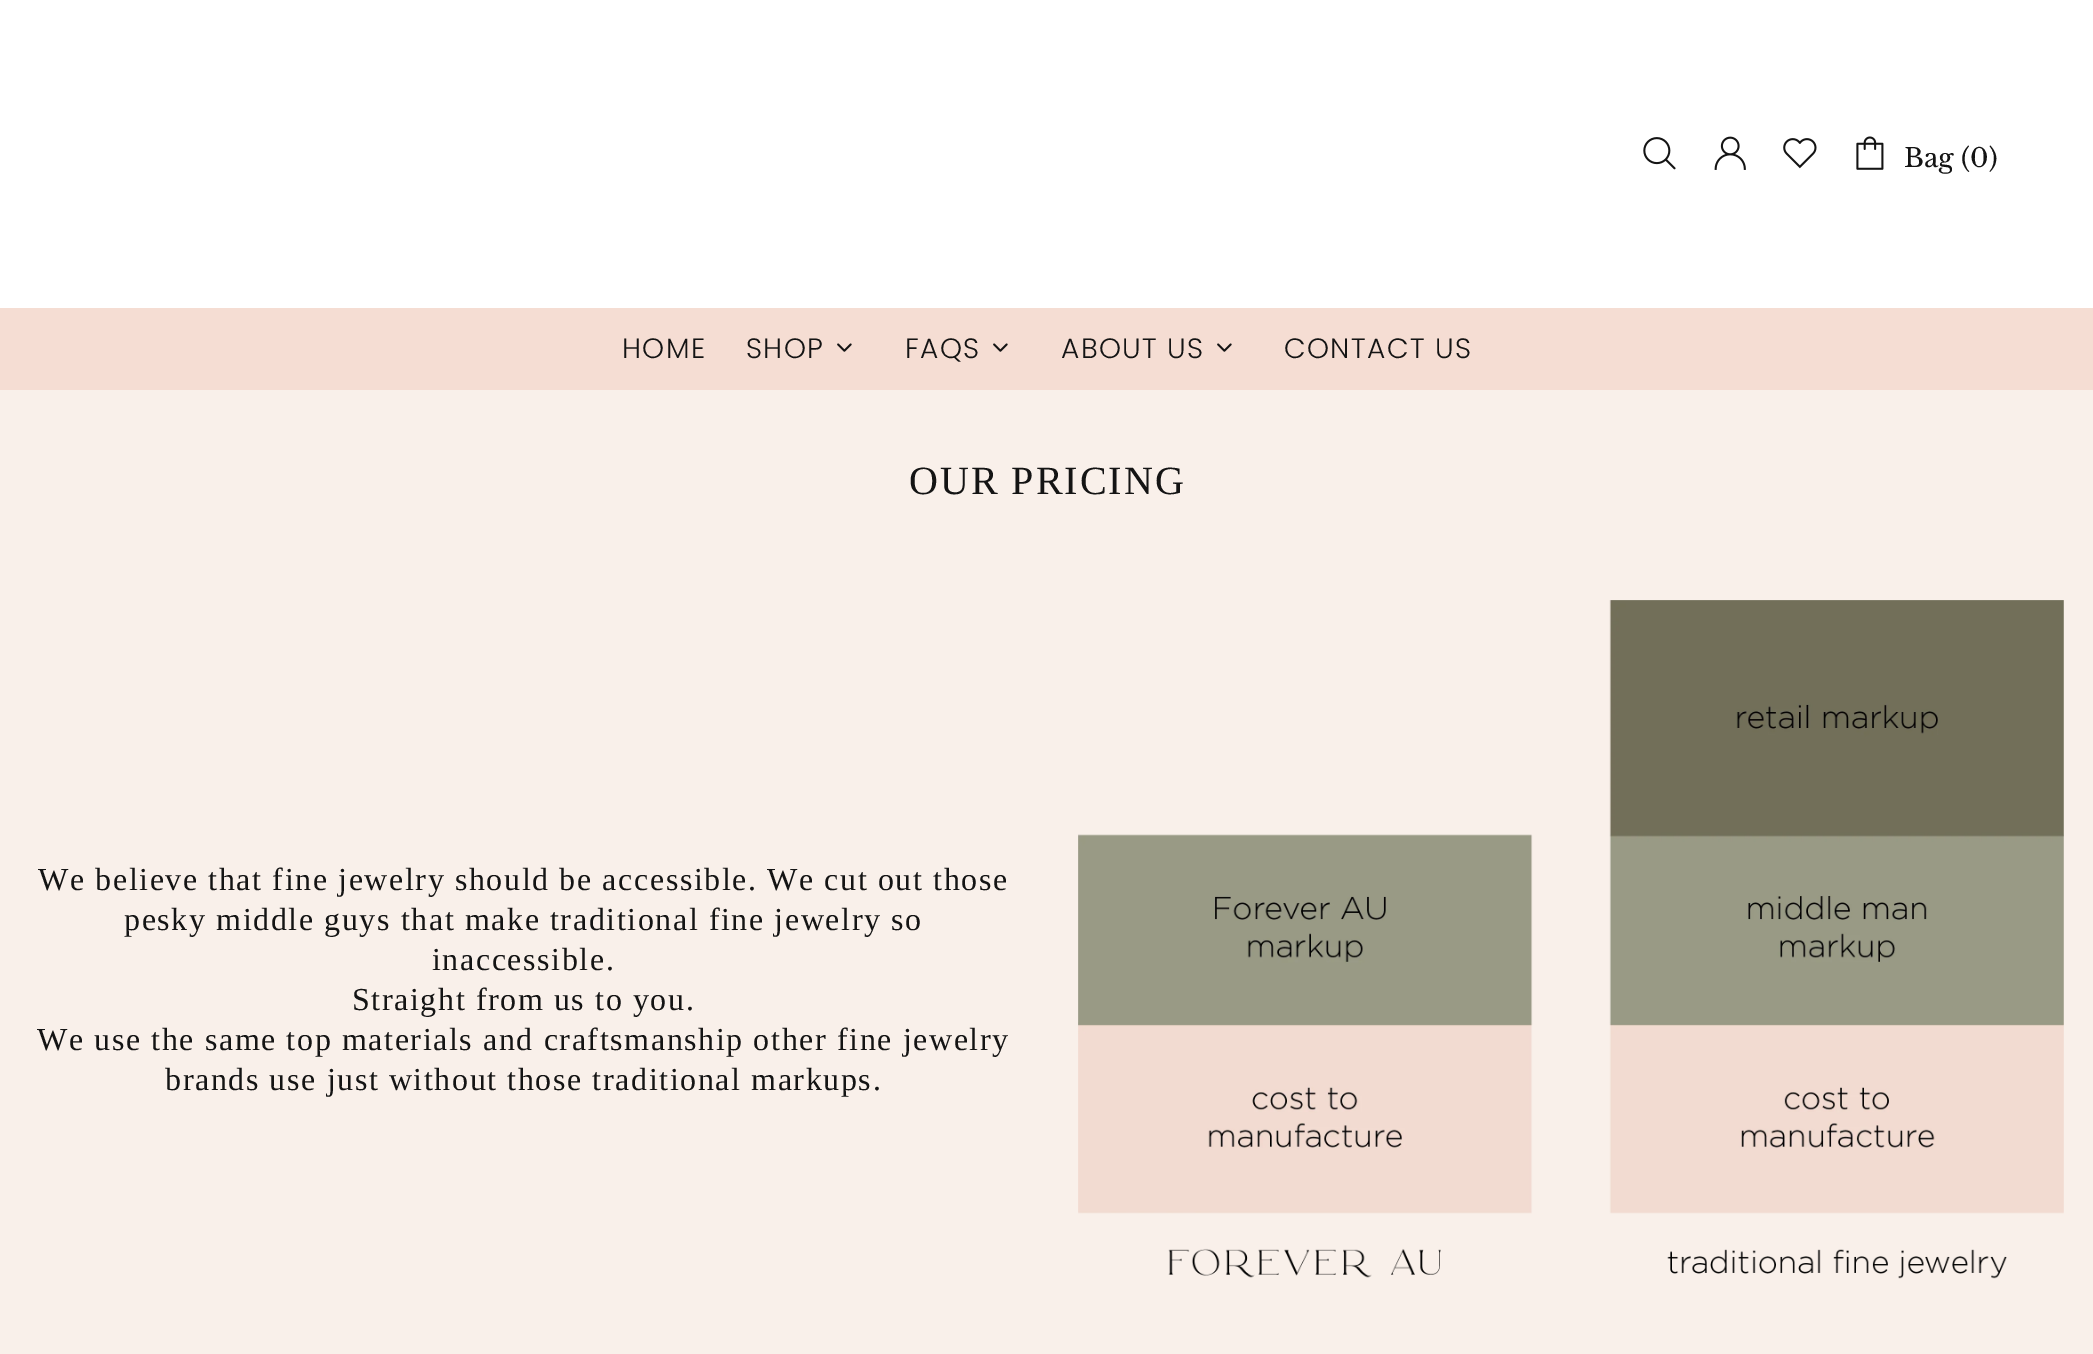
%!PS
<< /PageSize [2093 1354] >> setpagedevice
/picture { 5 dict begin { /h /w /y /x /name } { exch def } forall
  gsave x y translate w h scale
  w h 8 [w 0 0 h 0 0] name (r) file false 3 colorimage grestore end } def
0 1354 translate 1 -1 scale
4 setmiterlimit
1 setgray
0 0 2093 1354 rectfill
(img1.rgb) 1643 137 33 33 picture
(img2.rgb) 1714 136 32 34 picture
(img3.rgb) 1783 138 34 31 picture
(img4.rgb) 1856 136 28 34 picture
/LibreBaskerville-Regular [26 0 0 -26 0 0] selectfont
0.078 setgray
1904 167 moveto (Bag \(0\)) show
0.961 0.867 0.827 setrgbcolor
0 308 2093 82 rectfill
/Poppins-Light [28 0 0 -28 0 0] selectfont
0.078 setgray
622 358 moveto 1.4 0 (HOME) ashow
746 358 moveto 1.4 0 (SHOP) ashow
(img5.rgb) 837 343 15 9 picture
905 358 moveto 1.4 0 (FAQS) ashow
(img5.rgb) 993 343 15 9 picture
1061 358 moveto 1.4 0 (ABOUT US) ashow
(img5.rgb) 1217 343 15 9 picture
1284 358 moveto 1.4 0 (CONTACT US) ashow
0.976 0.941 0.918 setrgbcolor
0 390 2093 964 rectfill
/LiberationSerif-Regular [40 0 0 -40 0 0] selectfont
0.078 setgray
909 494 moveto 2 0 (OUR PRICING) ashow
/LiberationSerif-Regular [32 0 0 -32 0 0] selectfont
38 890 moveto 1.6 0 (We believe that fine jewelry should be accessible. We cut out those) ashow
124 930 moveto 1.6 0 (pesky middle guys that make traditional fine jewelry so) ashow
432 970 moveto 1.6 0 (inaccessible.) ashow
352 1010 moveto 1.6 0 (Straight from us to you.) ashow
37 1050 moveto 1.6 0 (We use the same top materials and craftsmanship other fine jewelry) ashow
165 1090 moveto 1.6 0 (brands use just without those traditional markups.) ashow
(img6.rgb) 1078 600 986 679 picture
showpage
